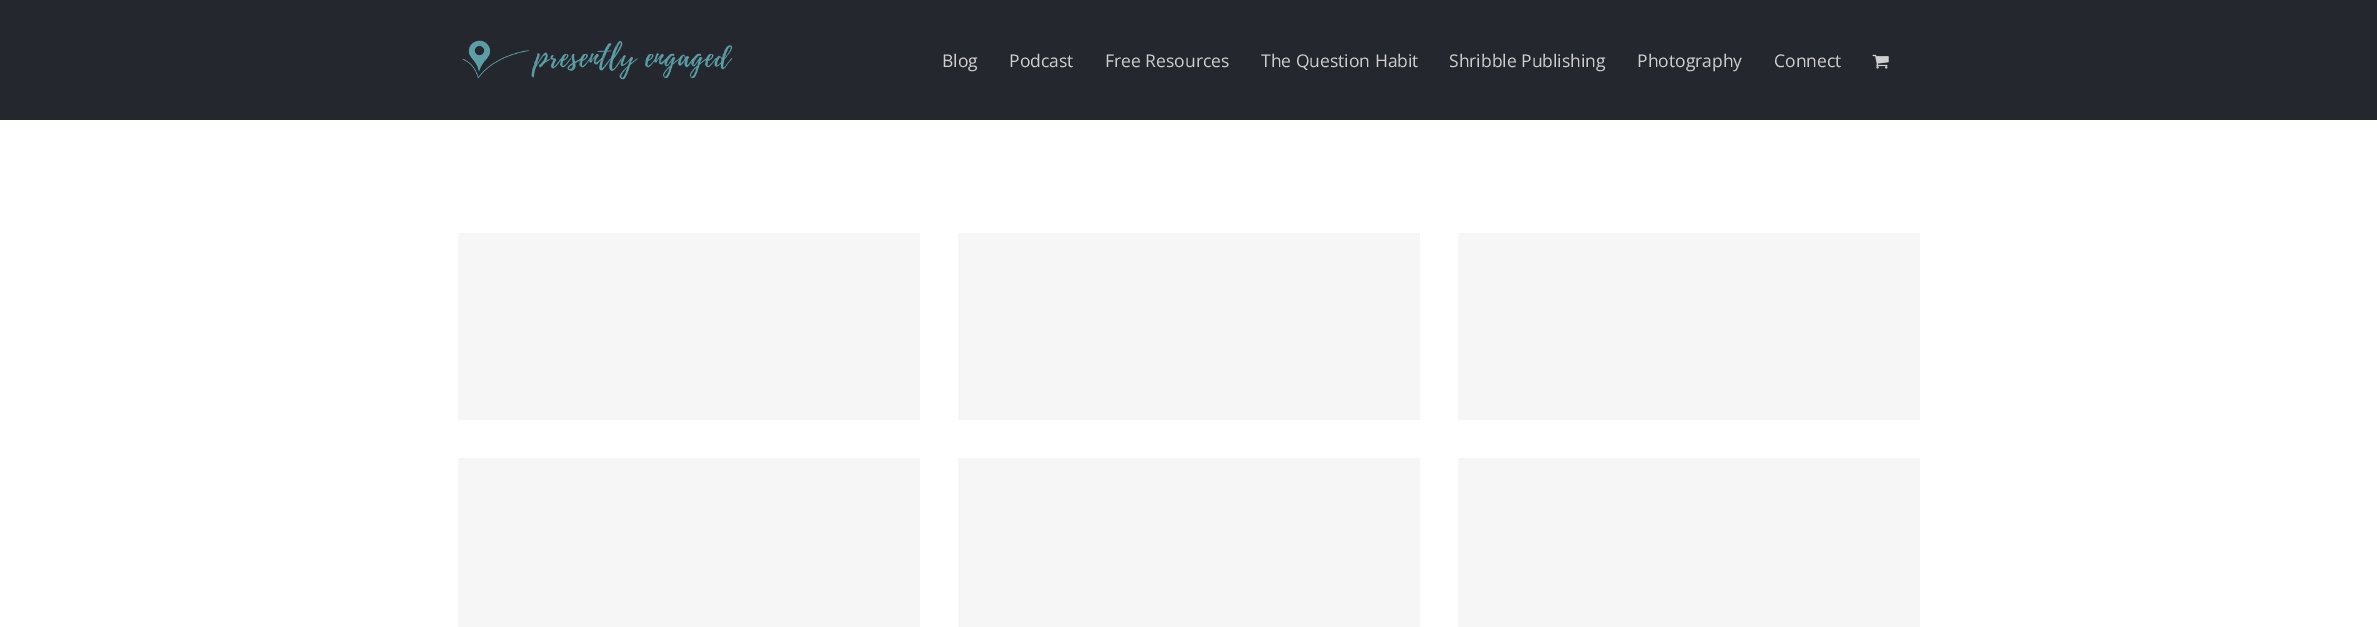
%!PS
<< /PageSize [2377 627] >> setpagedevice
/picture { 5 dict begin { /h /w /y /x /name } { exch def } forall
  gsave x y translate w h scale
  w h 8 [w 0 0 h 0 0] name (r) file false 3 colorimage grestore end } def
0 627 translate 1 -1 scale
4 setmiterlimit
1 setgray
0 0 2377 627 rectfill
0.141 0.153 0.176 setrgbcolor
0 0 2377 120 rectfill
(img1.rgb) 462 40 271 40 picture
/OpenSans-Regular [17.5 0 0 -17.5 0 0] selectfont
0.812 setgray
942 67 moveto (Blog) show
1009 67 moveto (Podcast) show
1105 67 moveto (Free Resources) show
1261 67 moveto (The Question Habit) show
1449 67 moveto (Shribble Publishing) show
1637 67 moveto (Photography) show
1774 67 moveto (Connect) show
(img2.rgb) 1872 54 17 15 picture
0.965 setgray
458 233 462 187 rectfill
958 233 462 187 rectfill
1458 233 462 187 rectfill
458 458 462 169 rectfill
958 458 462 169 rectfill
1458 458 462 169 rectfill
showpage
